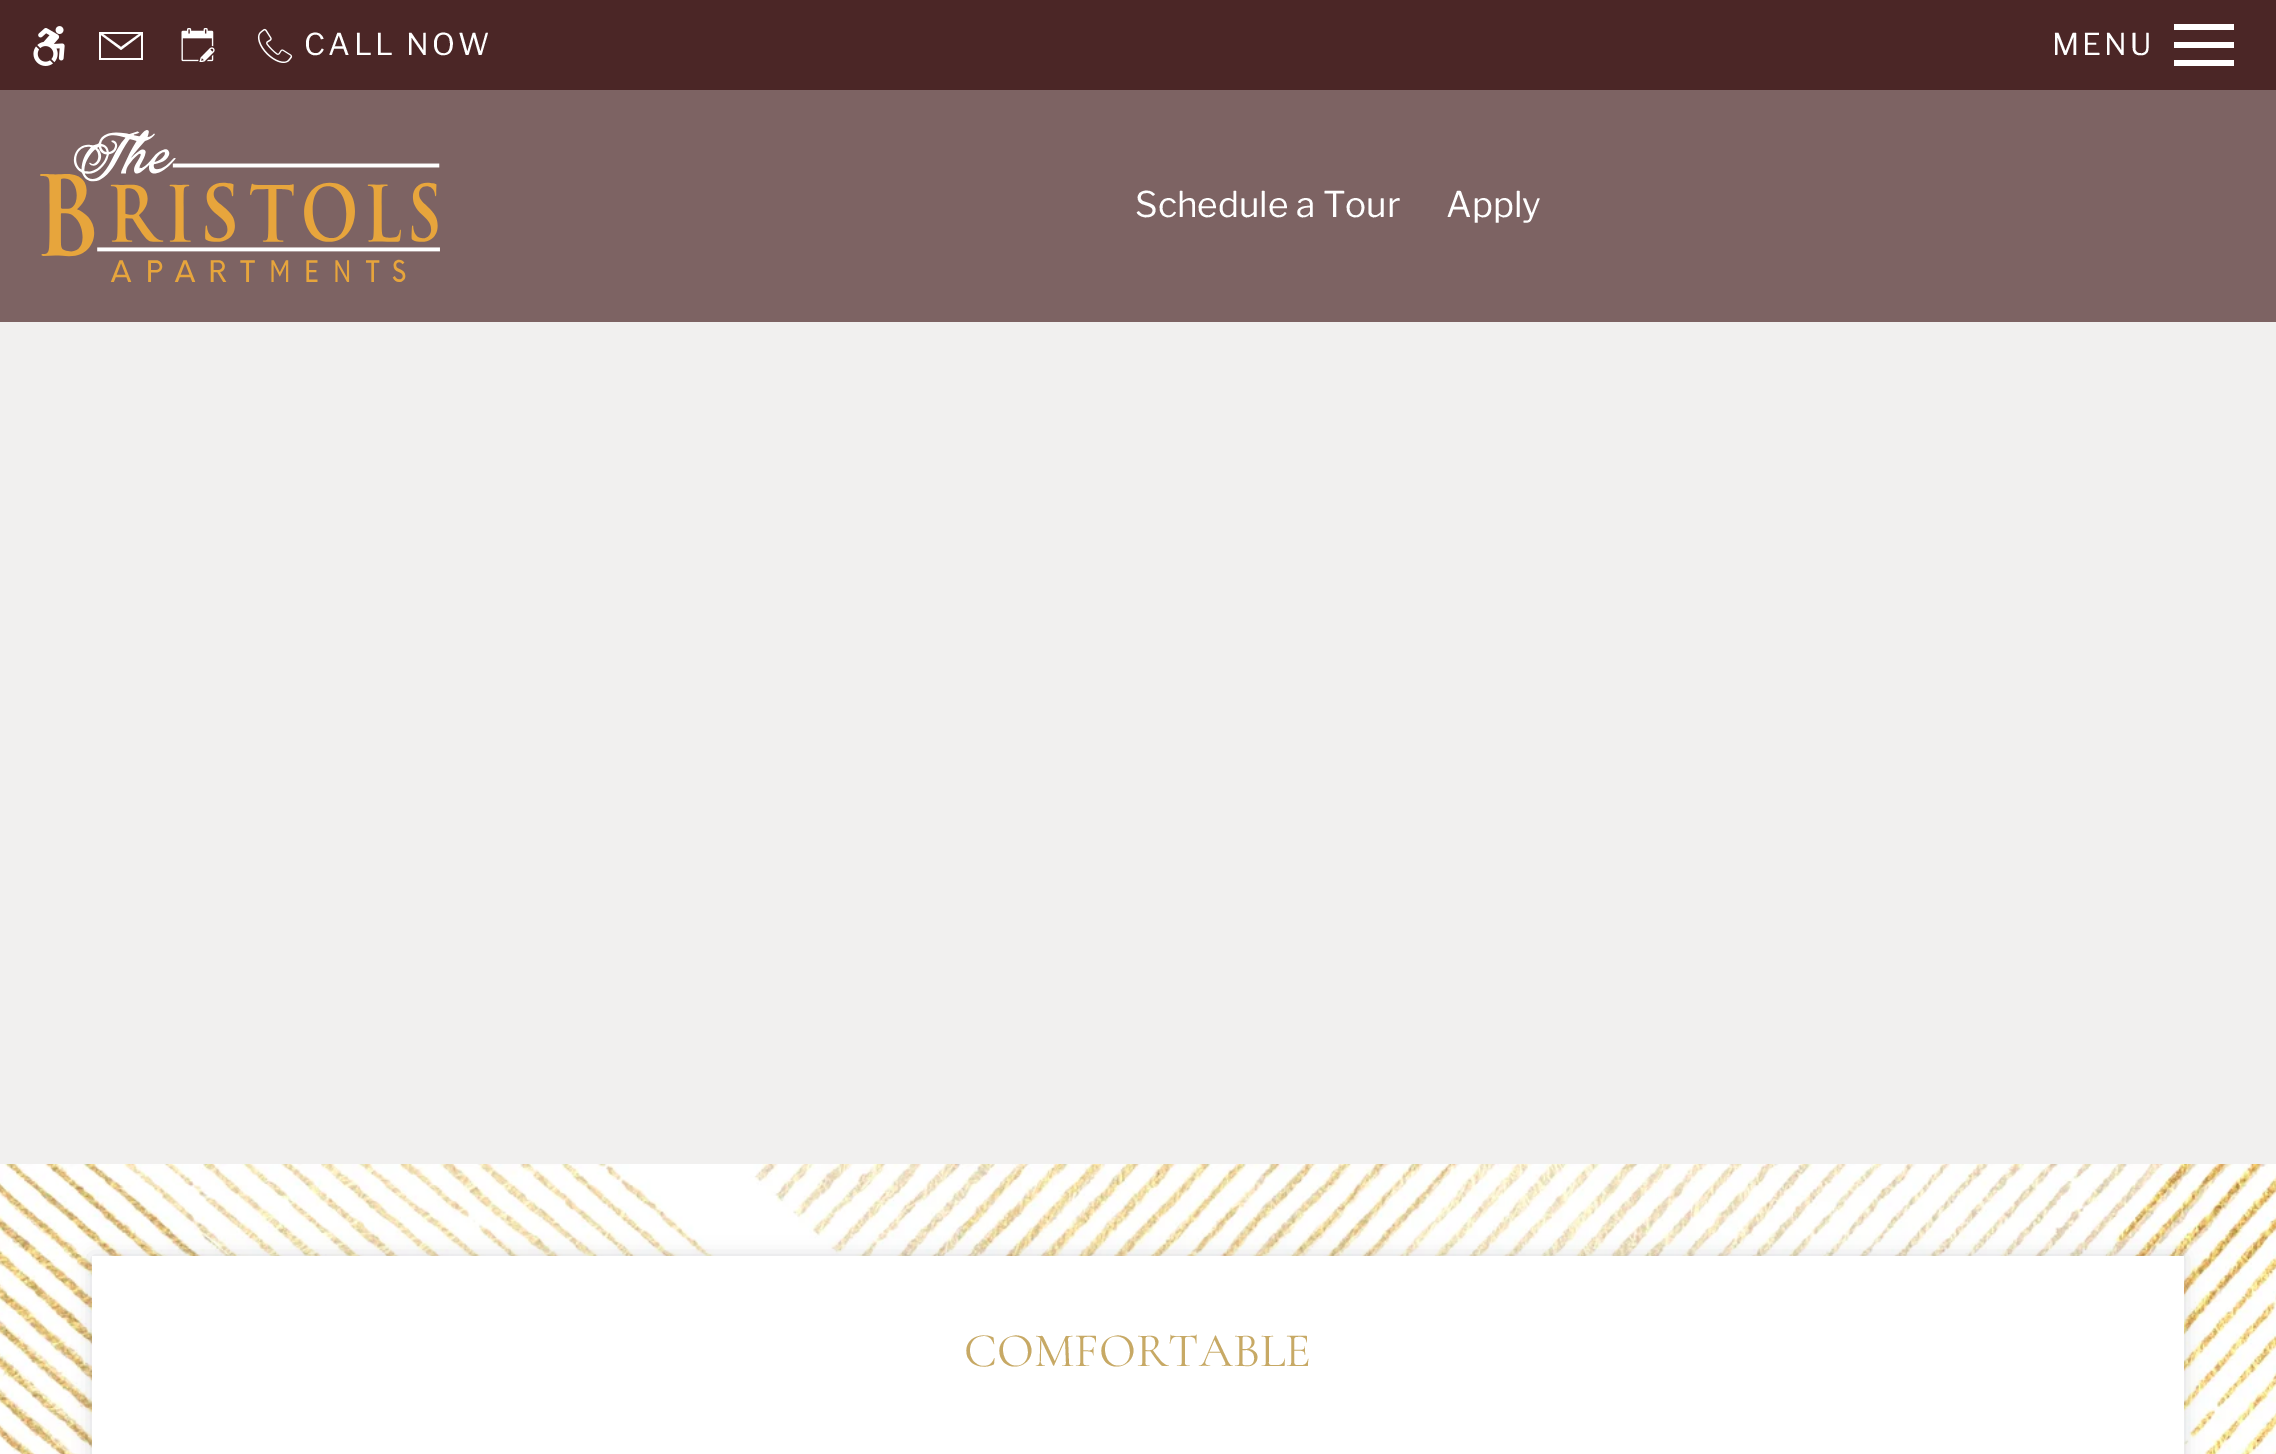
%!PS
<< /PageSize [2276 1454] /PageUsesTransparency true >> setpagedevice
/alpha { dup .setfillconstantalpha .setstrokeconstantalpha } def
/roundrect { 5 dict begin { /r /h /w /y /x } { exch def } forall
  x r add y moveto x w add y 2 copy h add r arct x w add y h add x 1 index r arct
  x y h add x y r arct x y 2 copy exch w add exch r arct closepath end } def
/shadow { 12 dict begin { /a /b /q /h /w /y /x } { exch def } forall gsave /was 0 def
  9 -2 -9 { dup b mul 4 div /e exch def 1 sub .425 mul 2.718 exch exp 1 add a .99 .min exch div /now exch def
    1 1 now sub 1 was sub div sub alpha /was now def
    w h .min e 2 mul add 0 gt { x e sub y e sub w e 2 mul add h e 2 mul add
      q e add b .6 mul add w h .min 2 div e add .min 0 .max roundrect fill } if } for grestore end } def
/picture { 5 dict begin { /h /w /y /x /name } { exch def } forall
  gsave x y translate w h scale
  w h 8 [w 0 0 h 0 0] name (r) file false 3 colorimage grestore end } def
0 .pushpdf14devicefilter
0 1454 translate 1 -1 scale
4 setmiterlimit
0.945 0.941 0.937 setrgbcolor
0 0 2276 1454 rectfill
0.294 0.149 0.149 setrgbcolor
0 0 2276 90 rectfill
(img1.rgb) 33 26 32 40 picture
1 setgray
newpath 141 35 moveto 141 58 lineto 101 58 lineto 101 35 lineto 121 50 lineto closepath 103 34 moveto 139 34 lineto 121 47 lineto closepath 99 60 moveto 143 60 lineto 143 32 lineto 99 32 lineto closepath fill
(img2.rgb) 181 28 34 34 picture
(img3.rgb) 257 28 36 35 picture
/LibreFranklin-Regular [30 0 0 -30 0 0] selectfont
304 55 moveto 3.25 0 (CALL NOW) ashow
2052 55 moveto 3 0 (MENU) ashow
2174 24 60 6 rectfill
2174 42 60 6 rectfill
2174 60 60 6 rectfill
0.49 0.388 0.388 setrgbcolor
0 90 2276 232 rectfill
(img4.rgb) 40 130 400 152 picture
/LibreFranklin-Regular [35.25 0 0 -35.25 0 0] selectfont
1 setgray
1135 217 moveto (Schedule a Tour) show
1446 217 moveto (Apply) show
(img5.rgb) 0 1164 2276 290 picture
0.259 0.267 0.353 setrgbcolor
92 1256 2092 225 0 9 0.2 shadow
1 setgray
92 1256 2092 198 rectfill
/CormorantGaramond-Regular [48.25 0 0 -48.25 0 0] selectfont
0.78 0.663 0.396 setrgbcolor
964 1366 moveto (COMFORTABLE) show
.poppdf14devicefilter showpage
